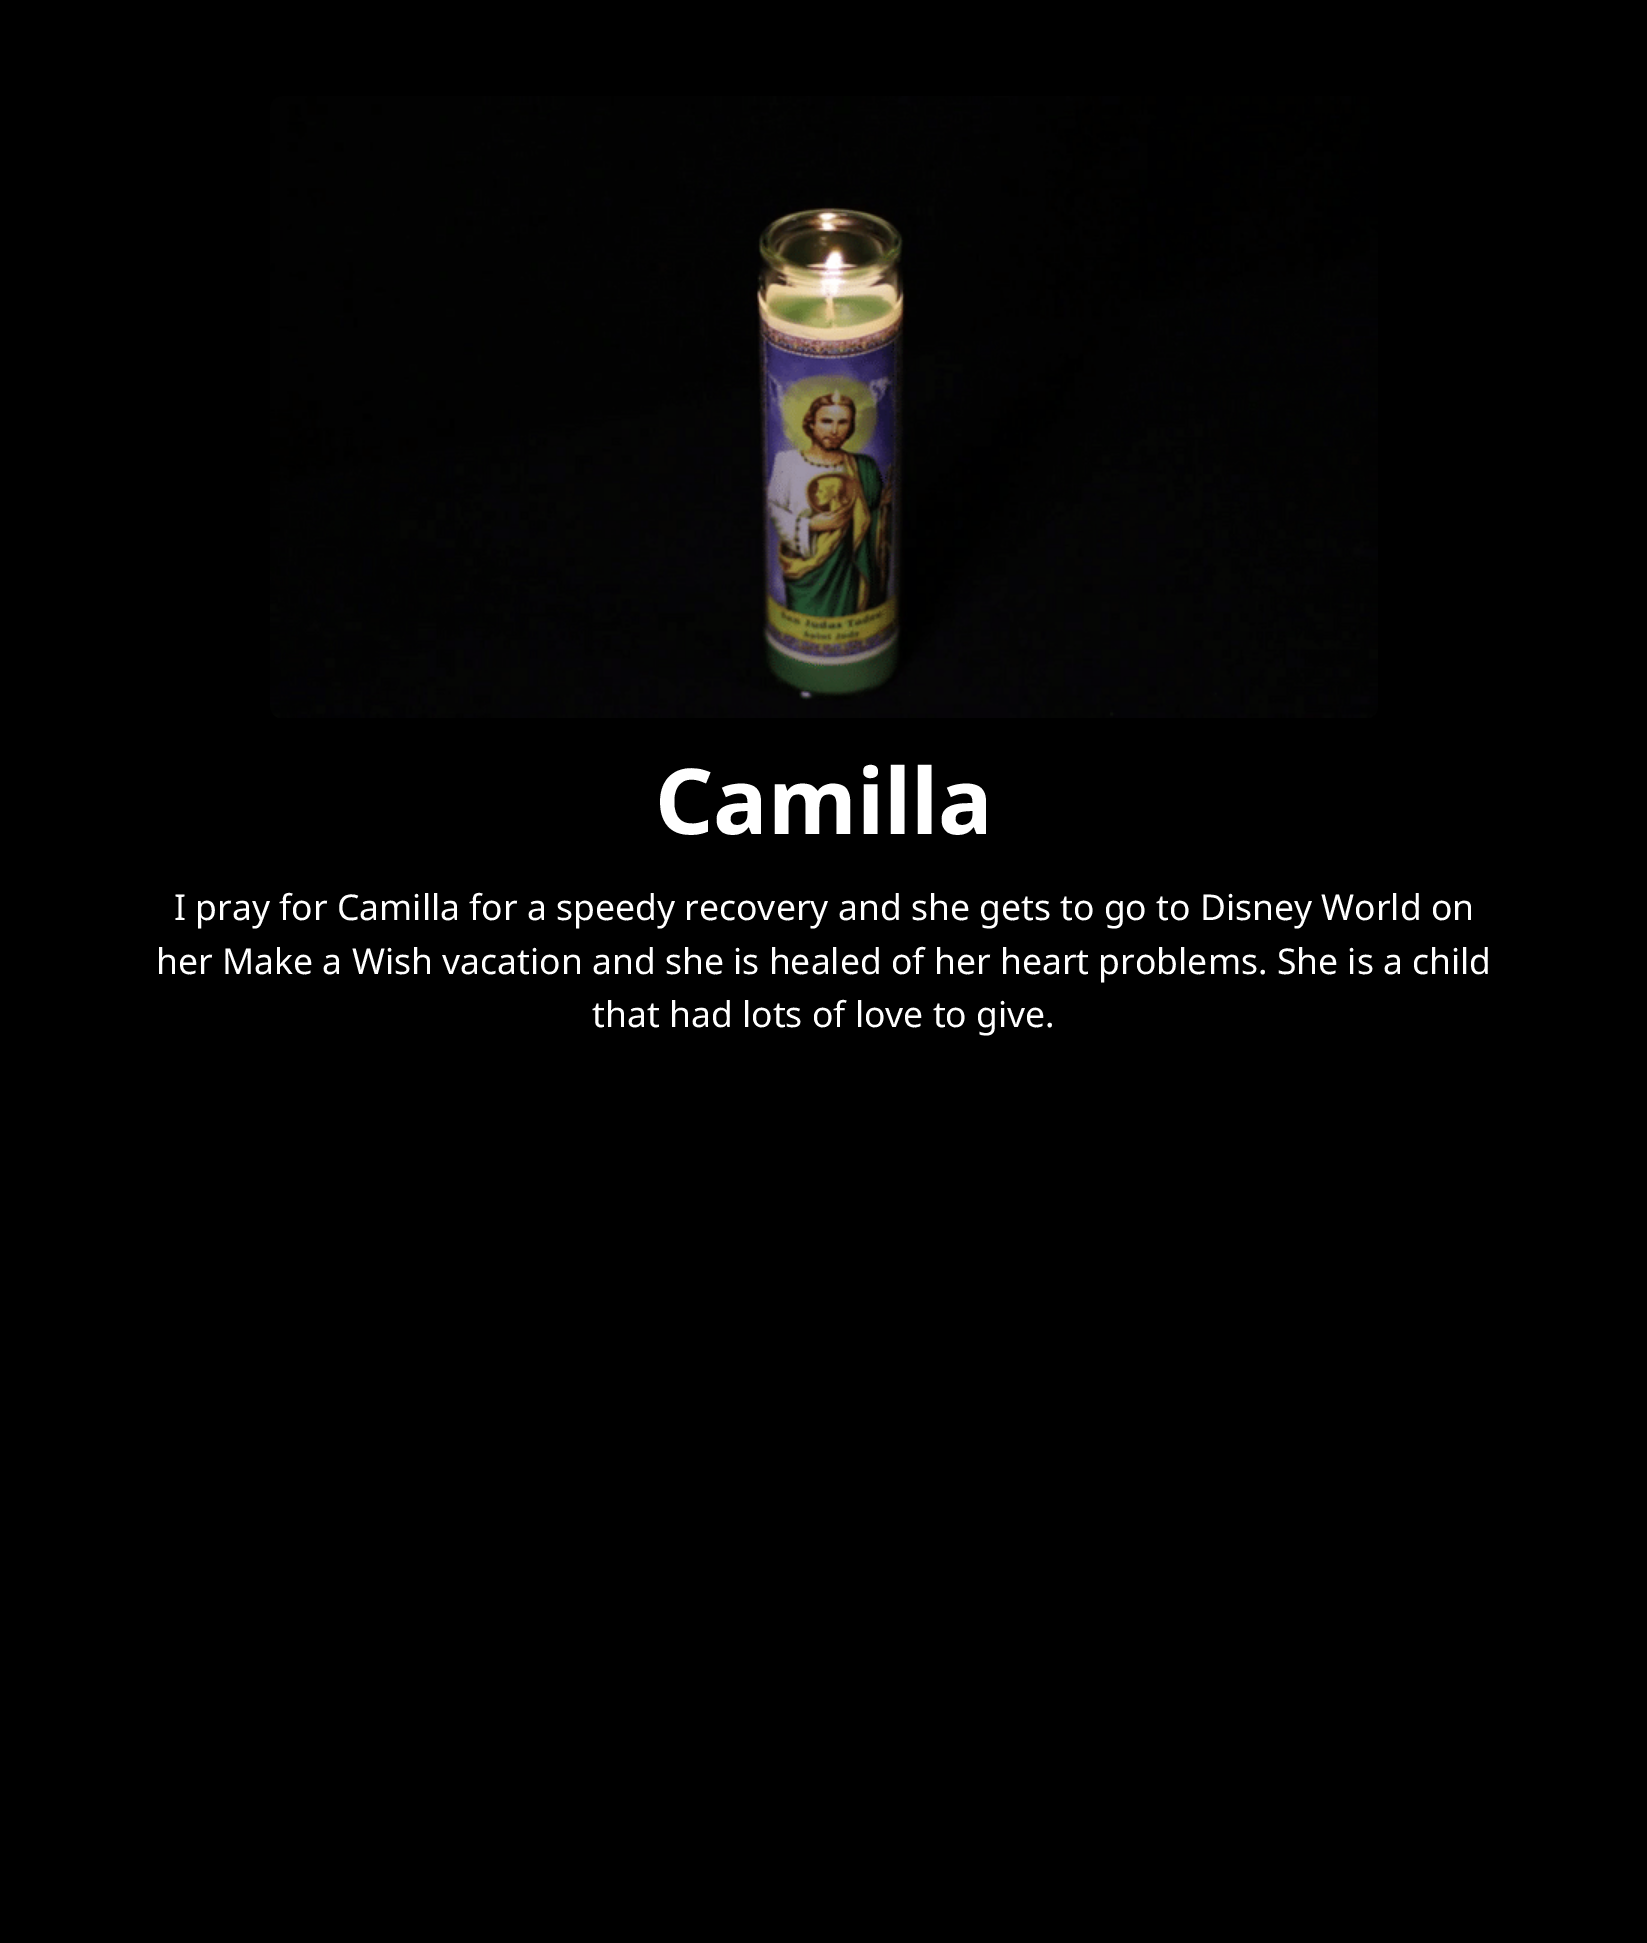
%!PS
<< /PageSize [1647 1943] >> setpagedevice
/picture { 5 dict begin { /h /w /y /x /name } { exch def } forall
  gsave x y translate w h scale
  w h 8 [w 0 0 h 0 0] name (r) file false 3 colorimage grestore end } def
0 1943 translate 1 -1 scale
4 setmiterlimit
0 setgray
0 0 1647 1943 rectfill
(img1.rgb) 270 96 1108 622 picture
/NotoSans-Bold [91 0 0 -91 0 0] selectfont
1 setgray
655 834 moveto (Camilla) show
/NotoSans-Regular [35.55 0 0 -35.55 0 0] selectfont
174 920 moveto (I pray for Camilla for a speedy recovery and she gets to go to Disney World on) show
156 974 moveto (her Make a Wish vacation and she is healed of her heart problems. She is a child) show
592 1027 moveto (that had lots of love to give.) show
showpage
